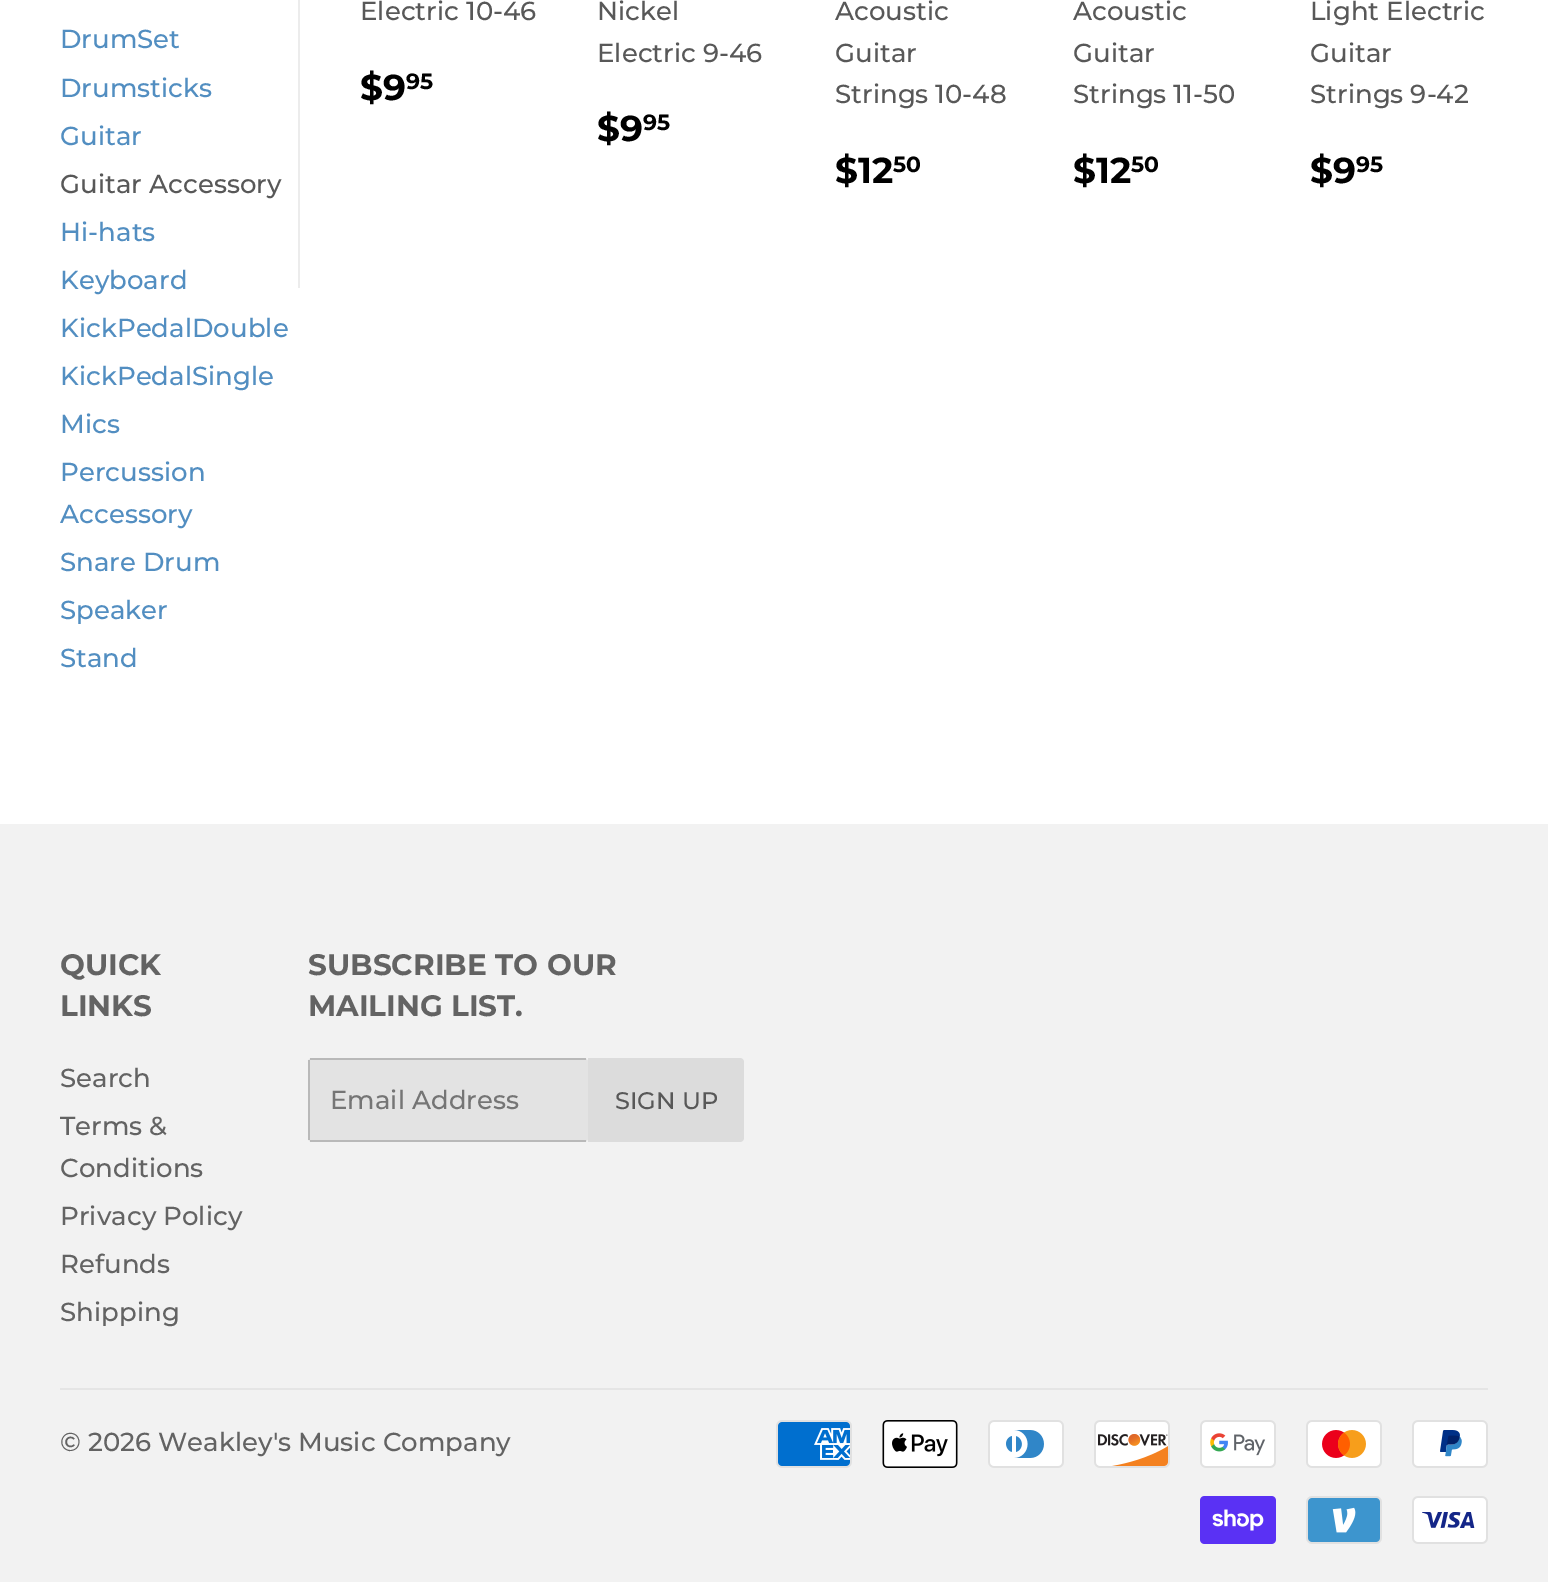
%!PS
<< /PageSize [1548 1582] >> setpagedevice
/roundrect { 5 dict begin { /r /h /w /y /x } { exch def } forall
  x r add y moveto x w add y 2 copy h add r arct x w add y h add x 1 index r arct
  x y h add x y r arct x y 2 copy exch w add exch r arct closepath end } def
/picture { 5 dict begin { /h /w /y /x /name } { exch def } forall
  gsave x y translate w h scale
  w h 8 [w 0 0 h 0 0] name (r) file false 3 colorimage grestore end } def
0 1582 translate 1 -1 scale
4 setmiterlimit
1 setgray
0 0 1548 1582 rectfill
/Montserrat-Medium [26 0 0 -26 0 0] selectfont
0.322 0.557 0.757 setrgbcolor
60 48 moveto (DrumSet) show
60 97 moveto (Drumsticks) show
60 145 moveto (Guitar) show
0.345 setgray
60 193 moveto (Guitar Accessory) show
0.322 0.557 0.757 setrgbcolor
60 241 moveto (Hi-hats) show
60 289 moveto (Keyboard) show
60 337 moveto (KickPedalDouble) show
60 385 moveto (KickPedalSingle) show
60 433 moveto (Mics) show
60 481 moveto (Percussion) show
60 523 moveto (Accessory) show
60 571 moveto (Snare Drum) show
60 619 moveto (Speaker) show
60 667 moveto (Stand) show
0.925 setgray
298 0 2 288 rectfill
0.345 setgray
360 20 moveto (Electric 10-46) show
/Montserrat-Bold [36 0 0 -36 0 0] selectfont
0 setgray
360 100 moveto ($9) show
/Montserrat-Bold [22 0 0 -22 0 0] selectfont
406 89 moveto (95) show
/Montserrat-Medium [26 0 0 -26 0 0] selectfont
0.345 setgray
597 20 moveto (Nickel) show
597 62 moveto (Electric 9-46) show
/Montserrat-Bold [36 0 0 -36 0 0] selectfont
0 setgray
597 141 moveto ($9) show
/Montserrat-Bold [22 0 0 -22 0 0] selectfont
643 130 moveto (95) show
/Montserrat-Medium [26 0 0 -26 0 0] selectfont
0.345 setgray
835 20 moveto (Acoustic) show
835 62 moveto (Guitar) show
835 103 moveto (Strings 10-48) show
/Montserrat-Bold [36 0 0 -36 0 0] selectfont
0 setgray
835 183 moveto ($12) show
/Montserrat-Bold [22 0 0 -22 0 0] selectfont
893 172 moveto (50) show
/Montserrat-Medium [26 0 0 -26 0 0] selectfont
0.345 setgray
1073 20 moveto (Acoustic) show
1073 62 moveto (Guitar) show
1073 103 moveto (Strings 11-50) show
/Montserrat-Bold [36 0 0 -36 0 0] selectfont
0 setgray
1073 183 moveto ($12) show
/Montserrat-Bold [22 0 0 -22 0 0] selectfont
1131 172 moveto (50) show
/Montserrat-Medium [26 0 0 -26 0 0] selectfont
0.345 setgray
1310 20 moveto (Light Electric) show
1310 62 moveto (Guitar) show
1310 103 moveto (Strings 9-42) show
/Montserrat-Bold [36 0 0 -36 0 0] selectfont
0 setgray
1310 183 moveto ($9) show
/Montserrat-Bold [22 0 0 -22 0 0] selectfont
1356 172 moveto (95) show
0.949 setgray
0 824 1548 758 rectfill
/Montserrat-Bold [29.5 0 0 -29.5 0 0] selectfont
0.388 setgray
60 975 moveto (QUICK) show
60 1016 moveto (LINKS) show
/Montserrat-Medium [26 0 0 -26 0 0] selectfont
60 1087 moveto (Search) show
60 1135 moveto (Terms &) show
60 1177 moveto (Conditions) show
60 1225 moveto (Privacy Policy) show
60 1273 moveto (Refunds) show
60 1321 moveto (Shipping) show
/Montserrat-Bold [29.5 0 0 -29.5 0 0] selectfont
308 975 moveto (SUBSCRIBE TO OUR) show
308 1016 moveto (MAILING LIST.) show
0.89 setgray
308 1058 280 84 4 roundrect fill
0.725 setgray
310 1058 276 2 rectfill
310 1140 276 2 rectfill
308 1060 2 80 rectfill
/Montserrat-Medium [26 0 0 -26 0 0] selectfont
0.459 setgray
330 1109 moveto (Email Address) show
0.863 setgray
newpath 588 1058 moveto 740 1058 lineto 742 1058 744 1060 744 1062 curveto 744 1138 lineto 744 1140 742 1142 740 1142 curveto 588 1142 lineto closepath fill
/Montserrat-Medium [24 0 0 -24 0 0] selectfont
0.345 setgray
615 1109 moveto (SIGN UP) show
0.898 setgray
60 1388 1428 2 rectfill
/Montserrat-Medium [26 0 0 -26 0 0] selectfont
0.388 setgray
60 1451 moveto (© 2026 Weakley's Music Company) show
(img1.rgb) 776 1420 76 48 picture
(img2.rgb) 882 1420 76 48 picture
(img3.rgb) 988 1420 76 48 picture
(img4.rgb) 1094 1420 76 48 picture
(img5.rgb) 1200 1420 76 48 picture
(img6.rgb) 1306 1420 76 48 picture
(img7.rgb) 1412 1420 76 48 picture
(img8.rgb) 1200 1496 76 48 picture
(img9.rgb) 1306 1496 76 48 picture
(img10.rgb) 1412 1496 76 48 picture
showpage
